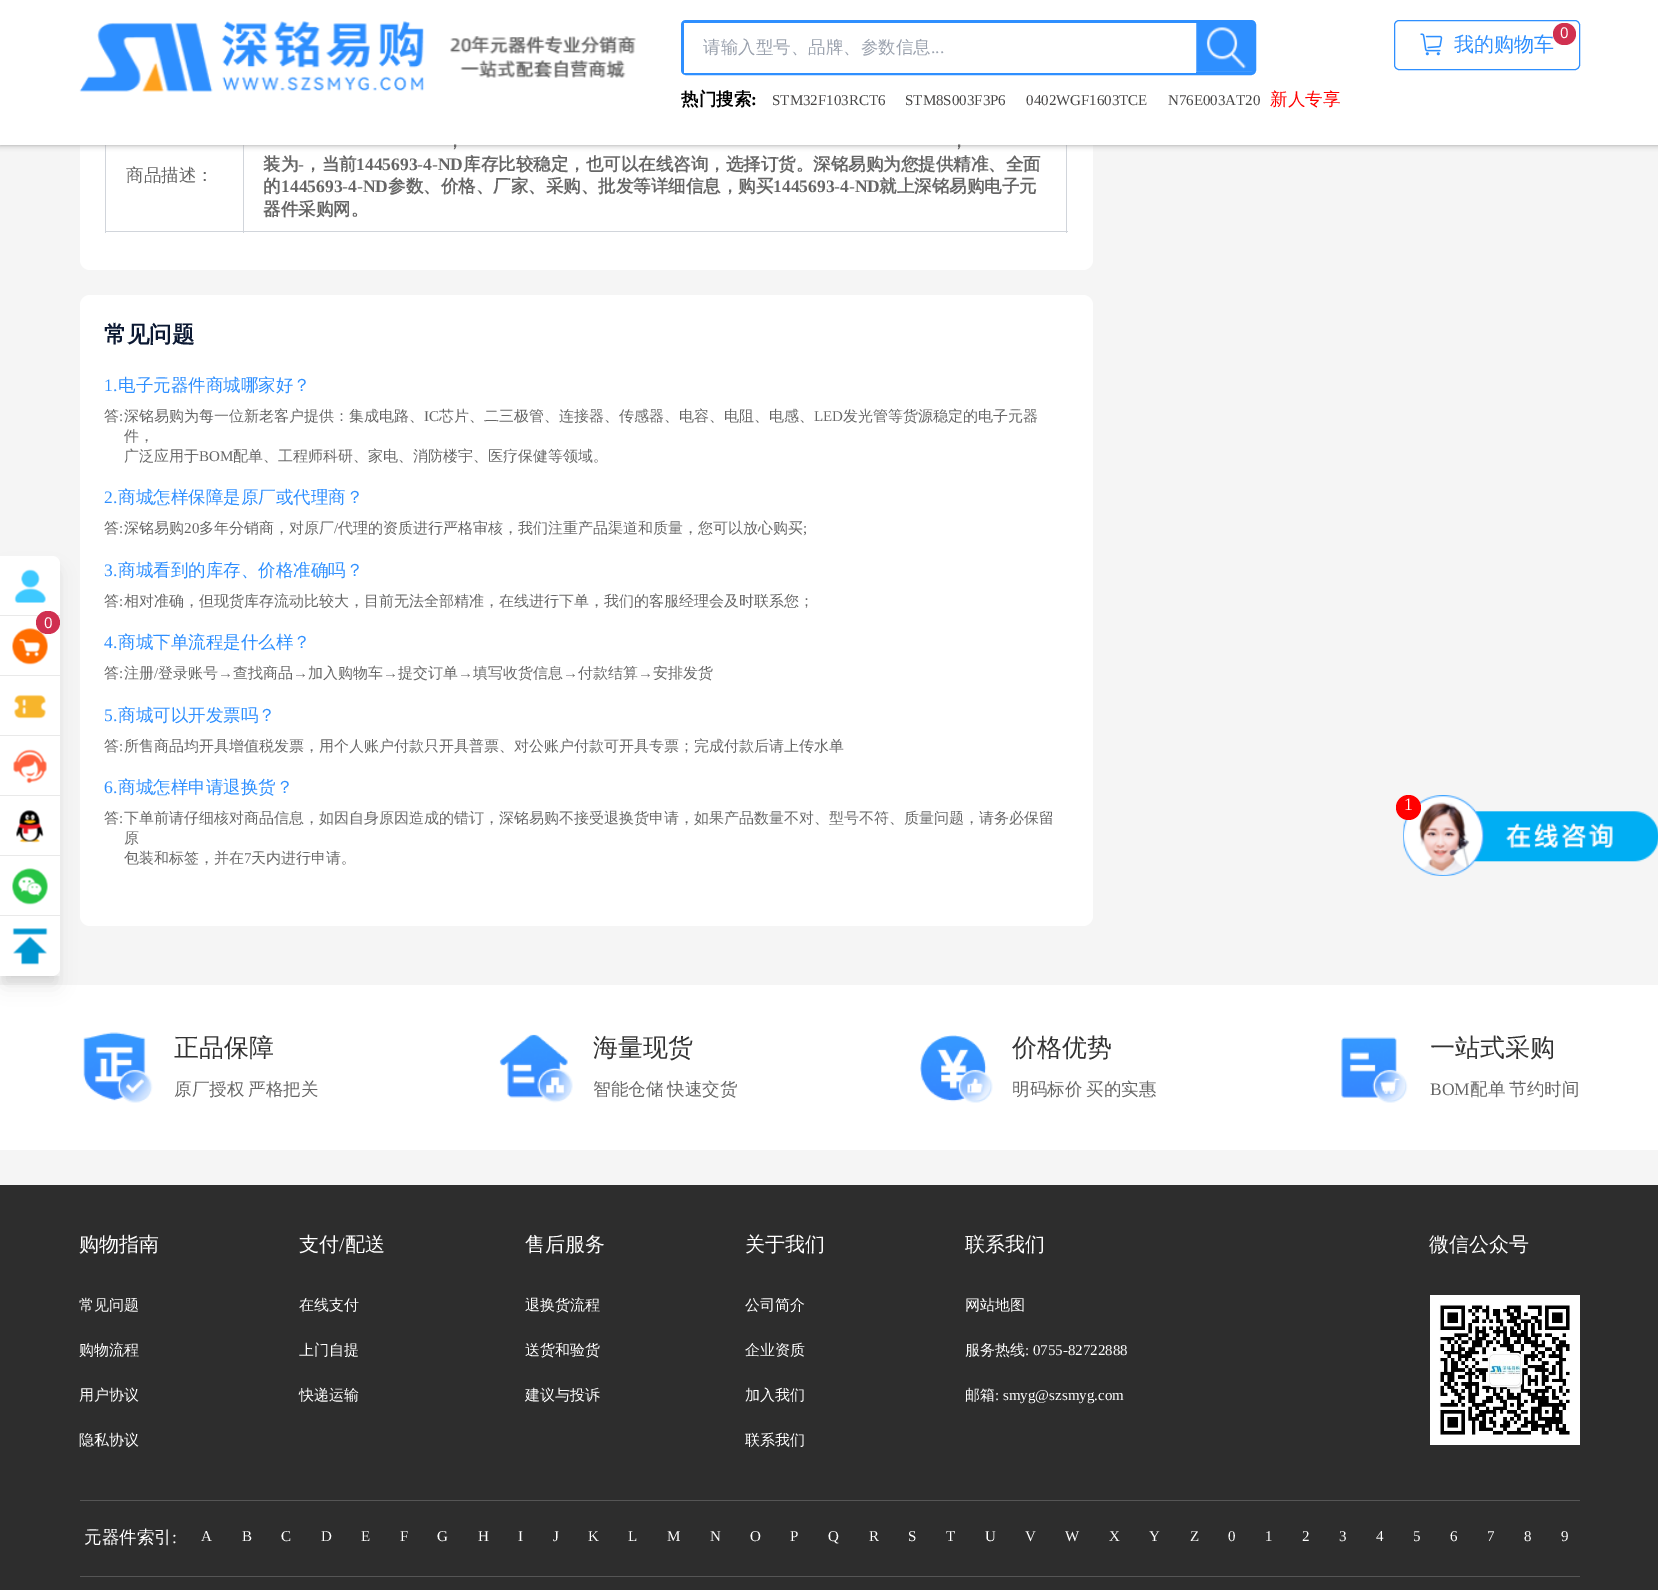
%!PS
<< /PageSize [1658 1590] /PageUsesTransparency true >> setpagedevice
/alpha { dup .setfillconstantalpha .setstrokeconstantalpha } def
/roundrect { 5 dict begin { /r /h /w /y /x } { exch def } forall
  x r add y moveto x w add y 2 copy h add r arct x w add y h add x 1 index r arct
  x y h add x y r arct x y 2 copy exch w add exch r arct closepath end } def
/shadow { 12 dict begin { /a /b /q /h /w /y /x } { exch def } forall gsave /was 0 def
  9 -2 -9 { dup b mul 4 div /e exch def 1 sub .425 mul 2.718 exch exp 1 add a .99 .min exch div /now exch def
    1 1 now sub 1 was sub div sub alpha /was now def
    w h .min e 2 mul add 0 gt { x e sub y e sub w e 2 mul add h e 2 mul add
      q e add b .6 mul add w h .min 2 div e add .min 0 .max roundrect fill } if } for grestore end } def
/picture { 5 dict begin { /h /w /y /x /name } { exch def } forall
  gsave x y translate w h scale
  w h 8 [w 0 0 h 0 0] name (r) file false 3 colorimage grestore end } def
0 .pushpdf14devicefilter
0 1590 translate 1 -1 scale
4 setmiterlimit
0.961 setgray
0 0 1658 1590 rectfill
1 setgray
80 -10 1013 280 10 roundrect fill
0.82 0.835 0.859 setrgbcolor
1066 145 1 88 rectfill
105 231 963 1 rectfill
105 145 1 88 rectfill
243 145 1 88 rectfill
0.6 setgray
0 0 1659 145 0 3 1 shadow
1 setgray
0 0 1658 145 rectfill
(img1.rgb) 79 21 557 71 picture
0.18 0.561 1 setrgbcolor
3 setlinewidth
682.5 21.5 572 52 3.5 roundrect stroke
1 setgray
684 23 512 50 rectfill
/WenQuanYiZenHei-Medium [17.5 0 0 -17.5 0 0] selectfont
0.612 0.639 0.686 setrgbcolor
703 53 moveto (请输入型号、品牌、参数信息) show
/LiberationSerif-Regular [17.5 0 0 -17.5 0 0] selectfont
931 53 moveto (...) show
(img2.rgb) 1196 23 57 49 picture
/WenQuanYiZenHei-Bold [17.5 0 0 -17.5 0 0] selectfont
0 setgray
681 105 moveto (热门搜索) show
/LiberationSerif-Bold [17.5 0 0 -17.5 0 0] selectfont
751 105 moveto (:) show
/LiberationSerif-Regular [15 0 0 -15 0 0] selectfont
0.278 0.275 0.275 setrgbcolor
772 105 moveto (STM32F103RCT6) show
905 105 moveto (STM8S003F3P6) show
1026 105 moveto (0402WGF1603TCE) show
1168 105 moveto (N76E003AT20) show
/WenQuanYiZenHei-Medium [17.5 0 0 -17.5 0 0] selectfont
1 0 0 setrgbcolor
1270 105 moveto (新人专享) show
0.18 0.561 1 setrgbcolor
1 setlinewidth
1394.5 20.5 185 49 4.5 roundrect stroke
(img3.rgb) 1420 33 23 23 picture
/WenQuanYiZenHei-Medium [20 0 0 -20 0 0] selectfont
1454 51 moveto (我的购物车) show
0.816 0.188 0.314 setrgbcolor
1553 23 23 22 11 roundrect fill
/NotoSans-Regular [15 0 0 -15 0 0] selectfont
1 setgray
1560 38 moveto (0) show
0 985 1658 165 rectfill
0 setgray
5 566 50 410 0 4 0.1 shadow
1 setgray
80 295 1013 631 10 roundrect fill
gsave
newpath 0 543 moveto 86 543 lineto 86 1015 lineto 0 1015 lineto closepath 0 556 moveto 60 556 lineto 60 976 lineto 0 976 lineto closepath eoclip newpath
0 setgray
4 573 52 412 0 9.5 0.1 shadow
grestore
newpath 0 556 moveto 52 556 lineto 56.5 556 60 559.5 60 564 curveto 60 615 lineto 0 615 lineto closepath fill
0.914 setgray
0 615 60 1 rectfill
(img4.rgb) 14 569 32 34 picture
1 setgray
0 616 60 59 rectfill
0.914 setgray
0 675 60 1 rectfill
(img5.rgb) 12 628 36 37 picture
0.816 0.188 0.314 setrgbcolor
36 611 24 23 11.5 roundrect fill
1 setgray
44 628 moveto (0) show
0 676 60 59 rectfill
0.914 setgray
0 735 60 1 rectfill
(img6.rgb) 14 694 32 25 picture
1 setgray
0 736 60 59 rectfill
0.914 setgray
0 795 60 1 rectfill
(img7.rgb) 13 749 34 35 picture
1 setgray
0 796 60 59 rectfill
0.914 setgray
0 855 60 1 rectfill
(img8.rgb) 16 810 28 33 picture
1 setgray
0 856 60 59 rectfill
0.914 setgray
0 915 60 1 rectfill
(img9.rgb) 12 868 36 37 picture
1 setgray
newpath 0 916 moveto 60 916 lineto 60 968 lineto 60 972.5 56.5 976 52 976 curveto 0 976 lineto closepath fill
(img10.rgb) 12 928 36 37 picture
(img11.rgb) 1403 795 255 81 picture
1 0 0 setrgbcolor
newpath 1408.5 807.5 12.5 0 360 arc closepath fill
/LiberationSerif-Regular [17.5 0 0 -17.5 0 0] selectfont
1 setgray
1404 810 moveto (1) show
/WenQuanYiZenHei-Medium [17.5 0 0 -17.5 0 0] selectfont
0.4 setgray
126 181 moveto (商品描述：) show
/WenQuanYiZenHei-Bold [17.5 0 0 -17.5 0 0] selectfont
446 147 moveto (，) show
950 147 moveto (，) show
263 170 moveto (装为) show
/LiberationSerif-Bold [17.5 0 0 -17.5 0 0] selectfont
298 170 moveto (-) show
/WenQuanYiZenHei-Bold [17.5 0 0 -17.5 0 0] selectfont
304 170 moveto (，当前) show
/LiberationSerif-Bold [17.5 0 0 -17.5 0 0] selectfont
356 170 moveto (1445693-4-ND) show
/WenQuanYiZenHei-Bold [17.5 0 0 -17.5 0 0] selectfont
463 170 moveto (库存比较稳定，也可以在线咨询，选择订货。深铭易购为您提供精准、全面) show
263 192 moveto (的) show
/LiberationSerif-Bold [17.5 0 0 -17.5 0 0] selectfont
281 192 moveto (1445693-4-ND) show
/WenQuanYiZenHei-Bold [17.5 0 0 -17.5 0 0] selectfont
388 192 moveto (参数、价格、厂家、采购、批发等详细信息，购买) show
/LiberationSerif-Bold [17.5 0 0 -17.5 0 0] selectfont
773 192 moveto (1445693-4-ND) show
/WenQuanYiZenHei-Bold [17.5 0 0 -17.5 0 0] selectfont
879 192 moveto (就上深铭易购电子元) show
263 215 moveto (器件采购网。) show
/WenQuanYiZenHei-Bold [22.5 0 0 -22.5 0 0] selectfont
0.043 0.094 0.196 setrgbcolor
104 342 moveto (常见问题) show
/LiberationSerif-Regular [17.5 0 0 -17.5 0 0] selectfont
0.18 0.561 1 setrgbcolor
104 391 moveto (1.) show
/WenQuanYiZenHei-Medium [17.5 0 0 -17.5 0 0] selectfont
118 391 moveto (电子元器件商城哪家好？) show
/WenQuanYiZenHei-Medium [15 0 0 -15 0 0] selectfont
0.4 setgray
104 421 moveto (答) show
/LiberationSerif-Regular [15 0 0 -15 0 0] selectfont
119 421 moveto (:) show
/WenQuanYiZenHei-Medium [15 0 0 -15 0 0] selectfont
124 421 moveto (深铭易购为每一位新老客户提供：集成电路、) show
/LiberationSerif-Regular [15 0 0 -15 0 0] selectfont
424 421 moveto (IC) show
/WenQuanYiZenHei-Medium [15 0 0 -15 0 0] selectfont
439 421 moveto (芯片、二三极管、连接器、传感器、电容、电阻、电感、) show
/LiberationSerif-Regular [15 0 0 -15 0 0] selectfont
814 421 moveto (LED) show
/WenQuanYiZenHei-Medium [15 0 0 -15 0 0] selectfont
843 421 moveto (发光管等货源稳定的电子元器) show
124 441 moveto (件，) show
124 461 moveto (广泛应用于) show
/LiberationSerif-Regular [15 0 0 -15 0 0] selectfont
199 461 moveto (BOM) show
/WenQuanYiZenHei-Medium [15 0 0 -15 0 0] selectfont
233 461 moveto (配单、工程师科研、家电、消防楼宇、医疗保健等领域。) show
/LiberationSerif-Regular [17.5 0 0 -17.5 0 0] selectfont
0.18 0.561 1 setrgbcolor
104 503 moveto (2.) show
/WenQuanYiZenHei-Medium [17.5 0 0 -17.5 0 0] selectfont
118 503 moveto (商城怎样保障是原厂或代理商？) show
/WenQuanYiZenHei-Medium [15 0 0 -15 0 0] selectfont
0.4 setgray
104 533 moveto (答) show
/LiberationSerif-Regular [15 0 0 -15 0 0] selectfont
119 533 moveto (:) show
/WenQuanYiZenHei-Medium [15 0 0 -15 0 0] selectfont
124 533 moveto (深铭易购) show
/LiberationSerif-Regular [15 0 0 -15 0 0] selectfont
184 533 moveto (20) show
/WenQuanYiZenHei-Medium [15 0 0 -15 0 0] selectfont
199 533 moveto (多年分销商，对原厂) show
/LiberationSerif-Regular [15 0 0 -15 0 0] selectfont
334 533 moveto (/) show
/WenQuanYiZenHei-Medium [15 0 0 -15 0 0] selectfont
338 533 moveto (代理的资质进行严格审核，我们注重产品渠道和质量，您可以放心购买) show
/LiberationSerif-Regular [15 0 0 -15 0 0] selectfont
803 533 moveto (;) show
/LiberationSerif-Regular [17.5 0 0 -17.5 0 0] selectfont
0.18 0.561 1 setrgbcolor
104 576 moveto (3.) show
/WenQuanYiZenHei-Medium [17.5 0 0 -17.5 0 0] selectfont
118 576 moveto (商城看到的库存、价格准确吗？) show
/WenQuanYiZenHei-Medium [15 0 0 -15 0 0] selectfont
0.4 setgray
104 606 moveto (答) show
/LiberationSerif-Regular [15 0 0 -15 0 0] selectfont
119 606 moveto (:) show
/WenQuanYiZenHei-Medium [15 0 0 -15 0 0] selectfont
124 606 moveto (相对准确，但现货库存流动比较大，目前无法全部精准，在线进行下单，我们的客服经理会及时联系您；) show
/LiberationSerif-Regular [17.5 0 0 -17.5 0 0] selectfont
0.18 0.561 1 setrgbcolor
104 648 moveto (4.) show
/WenQuanYiZenHei-Medium [17.5 0 0 -17.5 0 0] selectfont
118 648 moveto (商城下单流程是什么样？) show
/WenQuanYiZenHei-Medium [15 0 0 -15 0 0] selectfont
0.4 setgray
104 678 moveto (答) show
/LiberationSerif-Regular [15 0 0 -15 0 0] selectfont
119 678 moveto (:) show
/WenQuanYiZenHei-Medium [15 0 0 -15 0 0] selectfont
124 678 moveto (注册) show
/LiberationSerif-Regular [15 0 0 -15 0 0] selectfont
154 678 moveto (/) show
/WenQuanYiZenHei-Medium [15 0 0 -15 0 0] selectfont
158 678 moveto (登录账号) show
/LiberationSerif-Regular [15 0 0 -15 0 0] selectfont
218 678 moveto (→) show
/WenQuanYiZenHei-Medium [15 0 0 -15 0 0] selectfont
233 678 moveto (查找商品) show
/LiberationSerif-Regular [15 0 0 -15 0 0] selectfont
293 678 moveto (→) show
/WenQuanYiZenHei-Medium [15 0 0 -15 0 0] selectfont
308 678 moveto (加入购物车) show
/LiberationSerif-Regular [15 0 0 -15 0 0] selectfont
383 678 moveto (→) show
/WenQuanYiZenHei-Medium [15 0 0 -15 0 0] selectfont
398 678 moveto (提交订单) show
/LiberationSerif-Regular [15 0 0 -15 0 0] selectfont
458 678 moveto (→) show
/WenQuanYiZenHei-Medium [15 0 0 -15 0 0] selectfont
473 678 moveto (填写收货信息) show
/LiberationSerif-Regular [15 0 0 -15 0 0] selectfont
563 678 moveto (→) show
/WenQuanYiZenHei-Medium [15 0 0 -15 0 0] selectfont
578 678 moveto (付款结算) show
/LiberationSerif-Regular [15 0 0 -15 0 0] selectfont
638 678 moveto (→) show
/WenQuanYiZenHei-Medium [15 0 0 -15 0 0] selectfont
653 678 moveto (安排发货) show
/LiberationSerif-Regular [17.5 0 0 -17.5 0 0] selectfont
0.18 0.561 1 setrgbcolor
104 721 moveto (5.) show
/WenQuanYiZenHei-Medium [17.5 0 0 -17.5 0 0] selectfont
118 721 moveto (商城可以开发票吗？) show
/WenQuanYiZenHei-Medium [15 0 0 -15 0 0] selectfont
0.4 setgray
104 751 moveto (答) show
/LiberationSerif-Regular [15 0 0 -15 0 0] selectfont
119 751 moveto (:) show
/WenQuanYiZenHei-Medium [15 0 0 -15 0 0] selectfont
124 751 moveto (所售商品均开具增值税发票，用个人账户付款只开具普票、对公账户付款可开具专票；完成付款后请上传水单) show
/LiberationSerif-Regular [17.5 0 0 -17.5 0 0] selectfont
0.18 0.561 1 setrgbcolor
104 793 moveto (6.) show
/WenQuanYiZenHei-Medium [17.5 0 0 -17.5 0 0] selectfont
118 793 moveto (商城怎样申请退换货？) show
/WenQuanYiZenHei-Medium [15 0 0 -15 0 0] selectfont
0.4 setgray
104 823 moveto (答) show
/LiberationSerif-Regular [15 0 0 -15 0 0] selectfont
119 823 moveto (:) show
/WenQuanYiZenHei-Medium [15 0 0 -15 0 0] selectfont
124 823 moveto (下单前请仔细核对商品信息，如因自身原因造成的错订，深铭易购不接受退换货申请，如果产品数量不对、型号不符、质量问题，请务必保留) show
124 843 moveto (原) show
124 863 moveto (包装和标签，并在) show
/LiberationSerif-Regular [15 0 0 -15 0 0] selectfont
244 863 moveto (7) show
/WenQuanYiZenHei-Medium [15 0 0 -15 0 0] selectfont
251 863 moveto (天内进行申请。) show
(img12.rgb) 83 1032 70 71 picture
/WenQuanYiZenHei-Medium [25 0 0 -25 0 0] selectfont
0.2 setgray
174 1056 moveto (正品保障) show
/WenQuanYiZenHei-Medium [17.5 0 0 -17.5 0 0] selectfont
0.4 setgray
174 1095 moveto -1 0 32 (原厂授权 严格把关) widthshow
(img13.rgb) 499 1034 74 69 picture
/WenQuanYiZenHei-Medium [25 0 0 -25 0 0] selectfont
0.2 setgray
593 1056 moveto (海量现货) show
/WenQuanYiZenHei-Medium [17.5 0 0 -17.5 0 0] selectfont
0.4 setgray
593 1095 moveto -1 0 32 (智能仓储 快速交货) widthshow
(img14.rgb) 920 1035 73 68 picture
/WenQuanYiZenHei-Medium [25 0 0 -25 0 0] selectfont
0.2 setgray
1012 1056 moveto (价格优势) show
/WenQuanYiZenHei-Medium [17.5 0 0 -17.5 0 0] selectfont
0.4 setgray
1012 1095 moveto -1 0 32 (明码标价 买的实惠) widthshow
(img15.rgb) 1341 1037 67 66 picture
/WenQuanYiZenHei-Medium [25 0 0 -25 0 0] selectfont
0.2 setgray
1430 1056 moveto (一站式采购) show
/LiberationSerif-Regular [17.5 0 0 -17.5 0 0] selectfont
0.4 setgray
1430 1095 moveto (BOM) show
/WenQuanYiZenHei-Medium [17.5 0 0 -17.5 0 0] selectfont
1470 1095 moveto -1 0 32 (配单 节约时间) widthshow
0.176 setgray
0 1185 1658 405 rectfill
/WenQuanYiZenHei-Medium [20 0 0 -20 0 0] selectfont
1 setgray
79 1251 moveto (购物指南) show
/WenQuanYiZenHei-Medium [15 0 0 -15 0 0] selectfont
79 1310 moveto (常见问题) show
79 1355 moveto (购物流程) show
79 1400 moveto (用户协议) show
79 1445 moveto (隐私协议) show
/WenQuanYiZenHei-Medium [20 0 0 -20 0 0] selectfont
299 1251 moveto (支付) show
/LiberationSerif-Regular [20 0 0 -20 0 0] selectfont
339 1251 moveto (/) show
/WenQuanYiZenHei-Medium [20 0 0 -20 0 0] selectfont
345 1251 moveto (配送) show
/WenQuanYiZenHei-Medium [15 0 0 -15 0 0] selectfont
299 1310 moveto (在线支付) show
299 1355 moveto (上门自提) show
299 1400 moveto (快递运输) show
/WenQuanYiZenHei-Medium [20 0 0 -20 0 0] selectfont
525 1251 moveto (售后服务) show
/WenQuanYiZenHei-Medium [15 0 0 -15 0 0] selectfont
525 1310 moveto (退换货流程) show
525 1355 moveto (送货和验货) show
525 1400 moveto (建议与投诉) show
/WenQuanYiZenHei-Medium [20 0 0 -20 0 0] selectfont
745 1251 moveto (关于我们) show
/WenQuanYiZenHei-Medium [15 0 0 -15 0 0] selectfont
745 1310 moveto (公司简介) show
745 1355 moveto (企业资质) show
745 1400 moveto (加入我们) show
745 1445 moveto (联系我们) show
/WenQuanYiZenHei-Medium [20 0 0 -20 0 0] selectfont
965 1251 moveto (联系我们) show
/WenQuanYiZenHei-Medium [15 0 0 -15 0 0] selectfont
965 1310 moveto (网站地图) show
965 1355 moveto (服务热线) show
/LiberationSerif-Regular [15 0 0 -15 0 0] selectfont
1025 1355 moveto (: 0755-82722888) show
/WenQuanYiZenHei-Medium [15 0 0 -15 0 0] selectfont
965 1400 moveto (邮箱) show
/LiberationSerif-Regular [15 0 0 -15 0 0] selectfont
995 1400 moveto (: smyg@szsmyg.com) show
/WenQuanYiZenHei-Medium [20 0 0 -20 0 0] selectfont
1429 1251 moveto (微信公众号) show
1430 1295 150 150 rectfill
(img16.rgb) 1439 1304 131 131 picture
0.333 setgray
80 1500 1500 1 rectfill
80 1576 1500 1 rectfill
/WenQuanYiZenHei-Medium [17.5 0 0 -17.5 0 0] selectfont
1 setgray
84 1543 moveto (元器件索引) show
/LiberationSerif-Regular [17.5 0 0 -17.5 0 0] selectfont
172 1543 moveto (:) show
/LiberationSerif-Regular [15 0 0 -15 0 0] selectfont
201 1541 moveto (A) show
242 1541 moveto (B) show
281 1541 moveto (C) show
321 1541 moveto (D) show
361 1541 moveto (E) show
400 1541 moveto (F) show
437 1541 moveto (G) show
478 1541 moveto (H) show
518 1541 moveto (I) show
553 1541 moveto (J) show
588 1541 moveto (K) show
628 1541 moveto (L) show
667 1541 moveto (M) show
710 1541 moveto (N) show
750 1541 moveto (O) show
790 1541 moveto (P) show
828 1541 moveto (Q) show
869 1541 moveto (R) show
908 1541 moveto (S) show
946 1541 moveto (T) show
985 1541 moveto (U) show
1025 1541 moveto (V) show
1065 1541 moveto (W) show
1109 1541 moveto (X) show
1149 1541 moveto (Y) show
1190 1541 moveto (Z) show
1228 1541 moveto (0) show
1265 1541 moveto (1) show
1302 1541 moveto (2) show
1339 1541 moveto (3) show
1376 1541 moveto (4) show
1413 1541 moveto (5) show
1450 1541 moveto (6) show
1487 1541 moveto (7) show
1524 1541 moveto (8) show
1561 1541 moveto (9) show
.poppdf14devicefilter showpage
